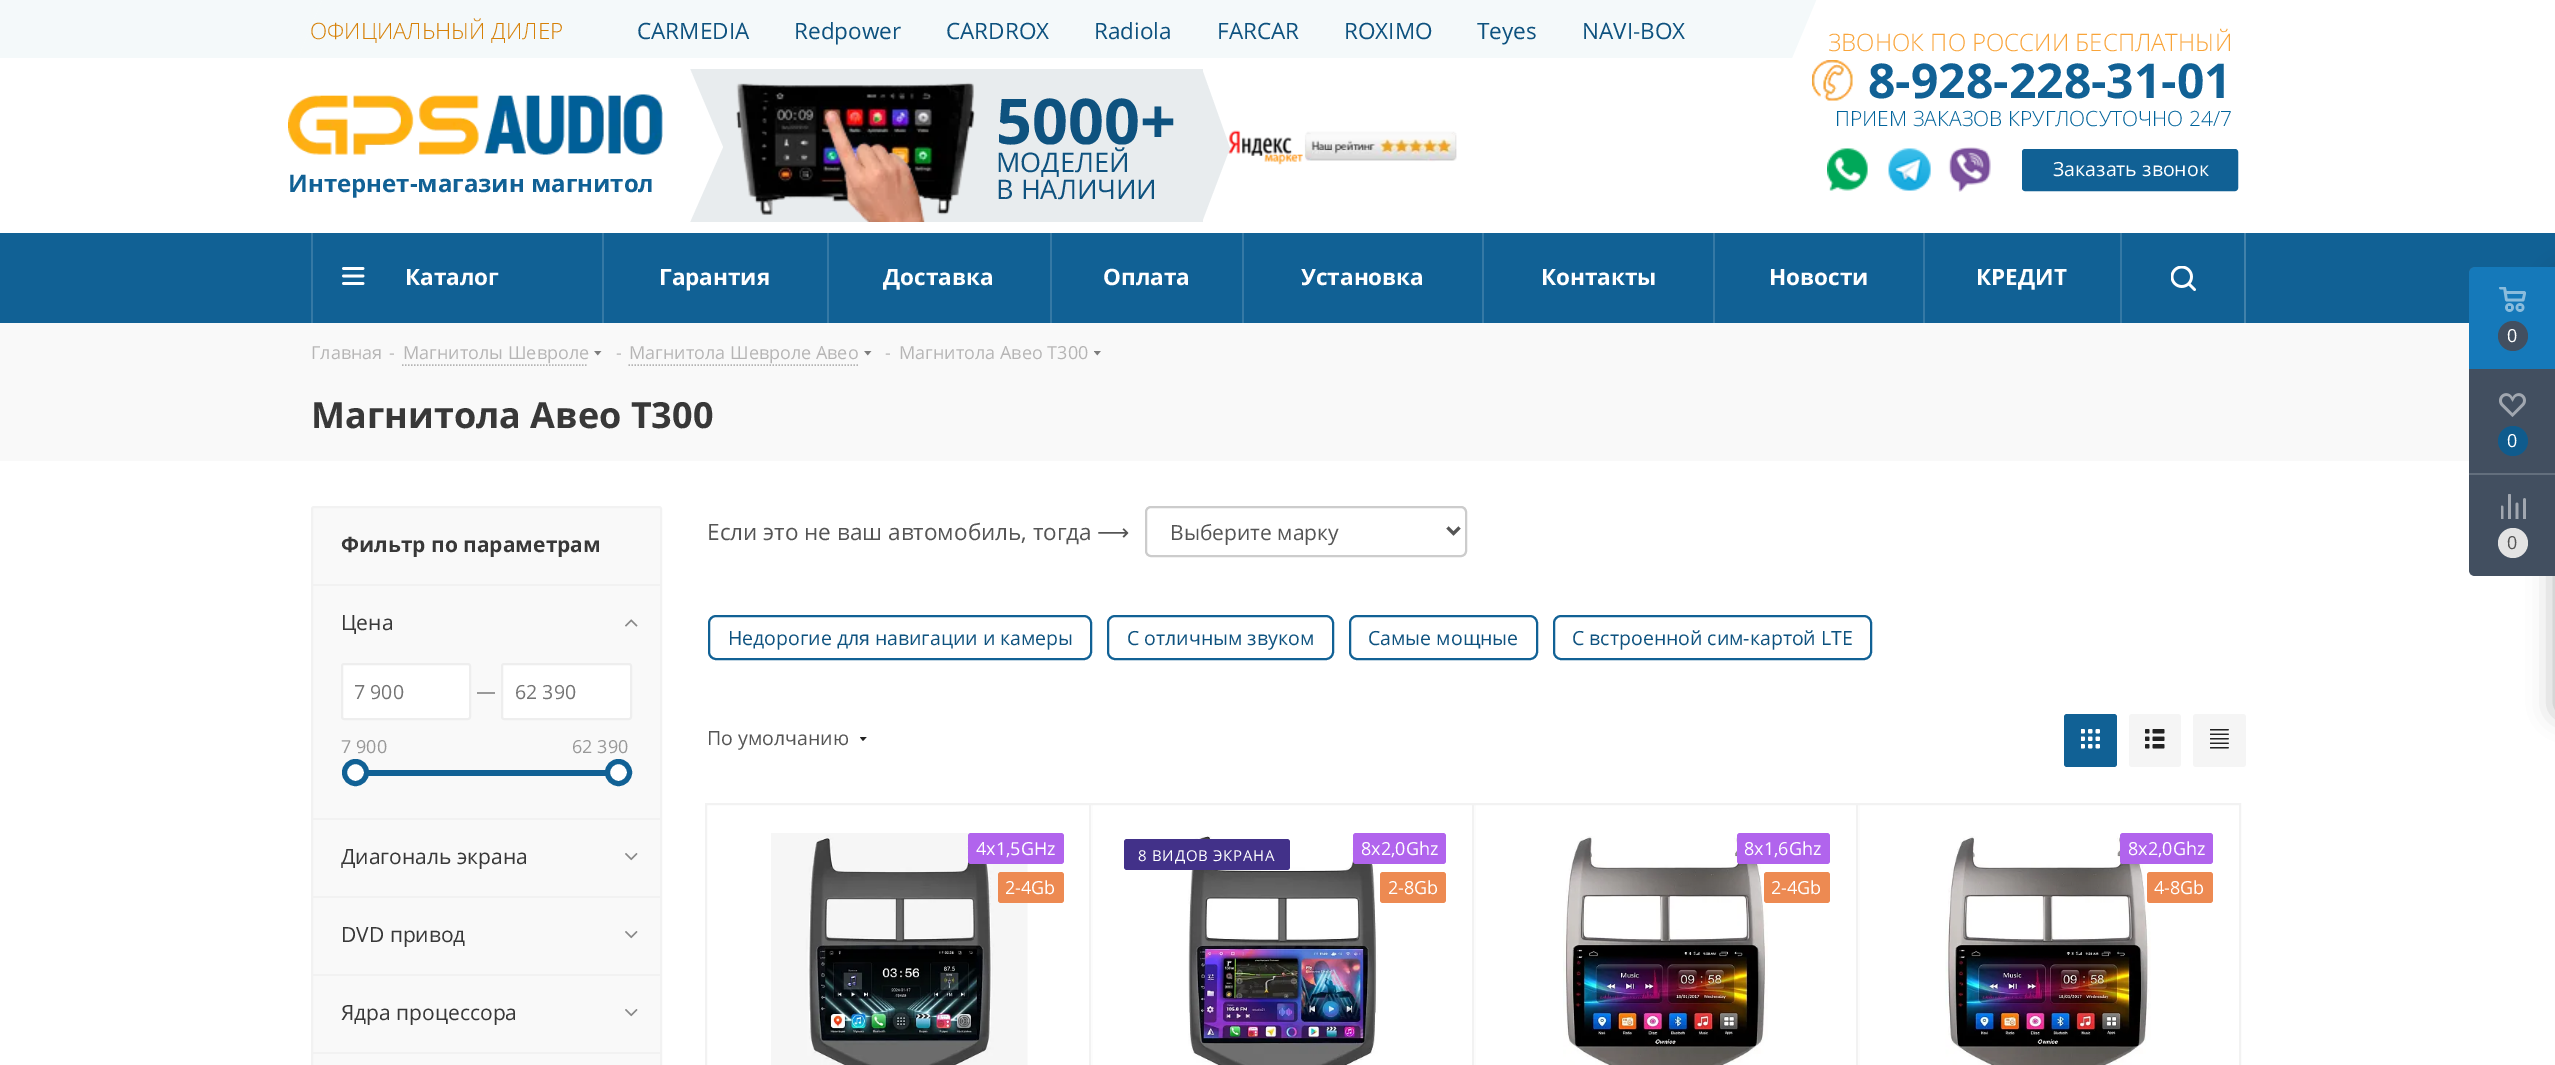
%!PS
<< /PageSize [2555 1065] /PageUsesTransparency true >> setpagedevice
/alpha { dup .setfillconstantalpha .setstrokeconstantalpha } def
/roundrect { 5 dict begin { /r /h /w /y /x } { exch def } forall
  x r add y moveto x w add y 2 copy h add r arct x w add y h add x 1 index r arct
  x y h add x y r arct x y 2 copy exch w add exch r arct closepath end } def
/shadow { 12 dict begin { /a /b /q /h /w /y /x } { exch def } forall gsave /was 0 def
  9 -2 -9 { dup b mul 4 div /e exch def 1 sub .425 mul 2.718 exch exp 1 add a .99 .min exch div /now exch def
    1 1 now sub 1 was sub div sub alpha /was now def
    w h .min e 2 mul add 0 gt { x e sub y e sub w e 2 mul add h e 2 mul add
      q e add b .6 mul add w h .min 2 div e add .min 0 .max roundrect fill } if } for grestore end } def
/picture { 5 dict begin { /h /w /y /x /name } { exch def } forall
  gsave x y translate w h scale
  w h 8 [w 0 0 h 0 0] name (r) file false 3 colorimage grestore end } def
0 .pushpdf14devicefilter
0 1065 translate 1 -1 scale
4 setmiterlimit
1 setgray
0 0 2555 1065 rectfill
0.957 0.976 0.98 setrgbcolor
newpath -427 -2 moveto -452 58 lineto 298 58 lineto 323 -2 lineto 1067 -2 lineto closepath fill
newpath 323 -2 moveto 1817 -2 lineto 1792 58 lineto 298 58 lineto closepath fill
/OpenSans-Light [22.5 0 0 -22.5 0 0] selectfont
0.839 0.506 0.031 setrgbcolor
310 39 moveto (ОФИЦИАЛЬНЫЙ ДИЛЕР) show
/OpenSans-Regular [22.5 0 0 -22.5 0 0] selectfont
0.055 0.322 0.498 setrgbcolor
637 39 moveto (CARMEDIA) show
794 39 moveto (Redpower) show
946 39 moveto (CARDROX) show
1094 39 moveto (Radiola) show
1217 39 moveto (FARCAR) show
1344 39 moveto (ROXIMO) show
1477 39 moveto (Teyes) show
1582 39 moveto (NAVI-BOX) show
0.91 0.925 0.933 setrgbcolor
690 69 513 153 rectfill
1 setgray
newpath 690 222 moveto 690 69 lineto 723 147 lineto closepath fill
(img1.rgb) 736 82 239 133 picture
(img2.rgb) 824 109 101 113 picture
/OpenSans-Bold [63 0 0 -63 0 0] selectfont
0.055 0.322 0.498 setrgbcolor
996 144 moveto (5000+) show
/OpenSans-Regular [27 0 0 -27 0 0] selectfont
996 172 moveto (МОДЕЛЕЙ) show
996 199 moveto (В НАЛИЧИИ) show
(img3.rgb) 1228 130 229 35 picture
0.91 0.925 0.933 setrgbcolor
newpath 1202 222 moveto 1202 69 lineto 1230 148 lineto closepath fill
/OpenSans-Light [24 0 0 -24 0 0] selectfont
0.976 0.643 0.224 setrgbcolor
1828 51 moveto (ЗВОНОК ПО РОССИИ БЕСПЛАТНЫЙ) show
(img4.rgb) 1812 60 41 41 picture
/OpenSans-Bold [48 0 0 -48 0 0] selectfont
0.067 0.38 0.584 setrgbcolor
1868 98 moveto (8-928-228-31-01) show
/OpenSans-Light [21 0 0 -21 0 0] selectfont
0 0.388 0.608 setrgbcolor
1835 126 moveto (ПРИЕМ ЗАКАЗОВ КРУГЛОСУТОЧНО 24/7) show
(img5.rgb) 1827 148 41 43 picture
(img6.rgb) 1888 148 43 43 picture
(img7.rgb) 1948 147 43 45 picture
0.067 0.38 0.584 setrgbcolor
2023 150 214 40 2 roundrect gsave fill grestore
2 setlinewidth
stroke
/OpenSans-Regular [19.5 0 0 -19.5 0 0] selectfont
1 setgray
2053 176 moveto (Заказать звонок) show
(img8.rgb) 288 94 375 61 picture
/OpenSans-Bold [24 0 0 -24 0 0] selectfont
0.067 0.38 0.584 setrgbcolor
288 192 moveto (Интернет-магазин магнитол) show
0 233 2555 90 rectfill
0.208 0.475 0.647 setrgbcolor
311 233 2 90 rectfill
602 233 2 90 rectfill
(img9.rgb) 342 267 23 18 picture
/OpenSans-Bold [22.5 0 0 -22.5 0 0] selectfont
1 setgray
405 285 moveto (Каталог) show
0.208 0.475 0.647 setrgbcolor
827 233 2 90 rectfill
1 setgray
659 285 moveto (Гарантия) show
0.208 0.475 0.647 setrgbcolor
1050 233 2 90 rectfill
1 setgray
883 285 moveto (Доставка) show
0.208 0.475 0.647 setrgbcolor
1242 233 2 90 rectfill
1 setgray
1103 285 moveto (Оплата) show
0.208 0.475 0.647 setrgbcolor
1482 233 2 90 rectfill
1 setgray
1301 285 moveto (Установка) show
0.208 0.475 0.647 setrgbcolor
1713 233 2 90 rectfill
1 setgray
1541 285 moveto (Контакты) show
0.208 0.475 0.647 setrgbcolor
1923 233 2 90 rectfill
1 setgray
1769 285 moveto (Новости) show
0.208 0.475 0.647 setrgbcolor
2120 233 2 90 rectfill
1 setgray
1976 285 moveto (КРЕДИТ) show
0.255 0.506 0.667 setrgbcolor
2244 233 2 90 rectfill
(img10.rgb) 2171 266 25 25 picture
0.976 setgray
0 323 2469 138 rectfill
/OpenSans-Regular [18 0 0 -18 0 0] selectfont
0.714 0.71 0.71 setrgbcolor
311 359 moveto (Главная) show
389 359 moveto (-) show
403 359 moveto (Магнитолы Шевроле) show
0.706 setgray
1.5 setlinewidth
[1.5 1.5] 0 setdash
newpath 402 365 moveto 588 365 lineto stroke
(img11.rgb) 594 351 8 5 picture
0.714 0.71 0.71 setrgbcolor
616 359 moveto (-) show
629 359 moveto (Магнитола Шевроле Авео) show
0.706 setgray
newpath 628.5 365 moveto 858 365 lineto stroke
(img11.rgb) 864 351 8 5 picture
0.714 0.71 0.71 setrgbcolor
885 359 moveto (-) show
899 359 moveto (Магнитола Авео Т300) show
(img12.rgb) 1094 351 7 5 picture
/OpenSans-Bold [36 0 0 -36 0 0] selectfont
0.22 setgray
311 428 moveto (Магнитола Авео Т300) show
0.976 setgray
312 507 349 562 2 roundrect gsave fill grestore
0.949 setgray
2 setlinewidth
[] 0 setdash
stroke
312 584 348 2 rectfill
/OpenSans-Bold [21 0 0 -21 0 0] selectfont
0.22 setgray
341 552 moveto (Фильтр по параметрам) show
0.949 setgray
312 818 348 2 rectfill
/OpenSans-Regular [21 0 0 -21 0 0] selectfont
0.22 setgray
341 630 moveto (Цена) show
(img13.rgb) 625 619 13 8 picture
1 setgray
342 664 128 55 2 roundrect gsave fill grestore
0.933 setgray
stroke
/OpenSans-Regular [19.5 0 0 -19.5 0 0] selectfont
0.459 setgray
354 699 moveto (7 900) show
0.604 setgray
477 692 18 2 rectfill
1 setgray
502 664 129 55 2 roundrect gsave fill grestore
0.933 setgray
stroke
0.459 setgray
515 699 moveto (62 390) show
/OpenSans-Regular [18 0 0 -18 0 0] selectfont
0.6 setgray
341 753 moveto (7 900) show
572 753 moveto (62 390) show
0.067 0.38 0.584 setrgbcolor
368 770 238 6 rectfill
1 setgray
newpath 355.5 772.5 11 0 360 arc closepath gsave fill grestore
0.067 0.38 0.584 setrgbcolor
5 setlinewidth
stroke
1 setgray
newpath 618.5 772.5 11 0 360 arc closepath gsave fill grestore
0.067 0.38 0.584 setrgbcolor
stroke
0.949 setgray
312 896 348 2 rectfill
/OpenSans-Regular [21 0 0 -21 0 0] selectfont
0.22 setgray
341 864 moveto (Диагональ экрана) show
(img14.rgb) 625 853 13 8 picture
0.949 setgray
312 974 348 2 rectfill
0.22 setgray
341 942 moveto (DVD привод) show
(img14.rgb) 625 931 13 8 picture
0.949 setgray
312 1052 348 2 rectfill
0.22 setgray
341 1020 moveto (Ядра процессора) show
(img14.rgb) 625 1009 13 8 picture
/OpenSans-Regular [22.5 0 0 -22.5 0 0] selectfont
0.333 setgray
707 540 moveto (Если это не ваш автомобиль, тогда) show
/DejaVuSans-Regular [22.5 0 0 -22.5 0 0] selectfont
1097 540 moveto (⟶) show
0.925 setgray
newpath 1150 508 moveto 1461 508 lineto 1463 508 1466 511 1466 513 curveto 1466 510 1464 507 1461 507 curveto 1151 507 lineto 1148 507 1146 510 1146 513 curveto 1146 511 1148 508 1150 508 curveto closepath fill
0.8 setgray
2 setlinewidth
1146 507 320 49 5 roundrect stroke
0.333 setgray
3 setlinewidth
newpath 1447.5 527.5 moveto 1453.5 533.5 lineto 1459.5 527.5 lineto stroke
/OpenSans-Regular [21 0 0 -21 0 0] selectfont
1170 540 moveto (Выберите марку) show
0.067 0.38 0.584 setrgbcolor
2 setlinewidth
709 616 382 43 7 roundrect stroke
/OpenSans-Regular [19.5 0 0 -19.5 0 0] selectfont
0.055 0.322 0.498 setrgbcolor
728 645 moveto (Недорогие для навигации и камеры) show
0.067 0.38 0.584 setrgbcolor
1108 616 225 43 7 roundrect stroke
0.055 0.322 0.498 setrgbcolor
1127 645 moveto (С отличным звуком) show
0.067 0.38 0.584 setrgbcolor
1350 616 187 43 7 roundrect stroke
0.055 0.322 0.498 setrgbcolor
1368 645 moveto (Самые мощные) show
0.067 0.38 0.584 setrgbcolor
1554 616 317 43 7 roundrect stroke
0.055 0.322 0.498 setrgbcolor
1572 645 moveto (С встроенной сим-картой LTE) show
0.333 setgray
707 745 moveto (По умолчанию) show
gsave
860 737 7 5 rectclip
0.133 setgray
newpath 859.5 736.5 moveto 867 736.5 lineto 863 741 lineto closepath eofill
grestore
0.067 0.38 0.584 setrgbcolor
2064 714 53 53 3 roundrect fill
(img15.rgb) 2081 729 19 20 picture
0.961 setgray
2129 714 52 53 3 roundrect fill
(img16.rgb) 2145 729 20 20 picture
2193 714 53 53 3 roundrect fill
(img17.rgb) 2210 729 19 20 picture
0.949 setgray
706 804 385 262 rectstroke
(img18.rgb) 771 833 257 232 picture
0.694 0.392 0.929 setrgbcolor
968 833 96 31 3 roundrect fill
/OpenSans-Regular [18 0 0 -18 0 0] selectfont
1 setgray
976 855 moveto (4x1,5GHz) show
0.929 0.541 0.322 setrgbcolor
998 872 66 31 3 roundrect fill
1 setgray
1005 894 moveto (2-4Gb) show
1091 805 1 260 rectfill
0.949 setgray
1090 804 384 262 rectstroke
(img19.rgb) 1188 836 190 229 picture
0.694 0.392 0.929 setrgbcolor
1353 833 93 31 3 roundrect fill
1 setgray
1361 855 moveto (8x2,0Ghz) show
0.929 0.541 0.322 setrgbcolor
1380 872 66 31 3 roundrect fill
1 setgray
1388 894 moveto (2-8Gb) show
0.259 0.192 0.537 setrgbcolor
1124 839 166 31 3 roundrect fill
/OpenSans-Regular [15 0 0 -15 0 0] selectfont
1 setgray
1138 861 moveto 0.75 0 (8 ВИДОВ ЭКРАНА) ashow
1474 805 1 260 rectfill
0.949 setgray
1473 804 385 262 rectstroke
(img20.rgb) 1563 836 205 229 picture
0.694 0.392 0.929 setrgbcolor
1737 833 93 31 3 roundrect fill
/OpenSans-Regular [18 0 0 -18 0 0] selectfont
1 setgray
1744 855 moveto (8x1,6Ghz) show
0.929 0.541 0.322 setrgbcolor
1764 872 66 31 3 roundrect fill
1 setgray
1771 894 moveto (2-4Gb) show
1858 805 1 260 rectfill
0.949 setgray
1857 804 383 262 rectstroke
(img21.rgb) 1945 836 206 229 picture
0.694 0.392 0.929 setrgbcolor
2120 833 93 31 3 roundrect fill
1 setgray
2128 855 moveto (8x2,0Ghz) show
0.929 0.541 0.322 setrgbcolor
2147 872 66 31 3 roundrect fill
1 setgray
2154 894 moveto (4-8Gb) show
0.173 setgray
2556 276 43 437 3 13.5 0.4 shadow
0.259 0.31 0.376 setrgbcolor
newpath 2475 267 moveto 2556 267 lineto 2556 576 lineto 2475 576 lineto 2471.5 576 2469 573.5 2469 570 curveto 2469 273 lineto 2469 269.5 2471.5 267 2475 267 curveto closepath fill
0.082 0.475 0.729 setrgbcolor
newpath 2475 267 moveto 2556 267 lineto 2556 369 lineto 2469 369 lineto 2469 273 lineto 2469 269.5 2471.5 267 2475 267 curveto closepath fill
(img22.rgb) 2499 287 27 25 picture
0.259 0.31 0.376 setrgbcolor
newpath 2513 336 15 0 360 arc closepath fill
1 setgray
2507 342 moveto (0) show
(img23.rgb) 2499 393 27 24 picture
0.059 0.357 0.553 setrgbcolor
newpath 2513 441 15 0 360 arc closepath fill
1 setgray
2507 447 moveto (0) show
0.388 0.435 0.49 setrgbcolor
2469 473 86 2 rectfill
(img24.rgb) 2501 494 25 25 picture
0.89 setgray
newpath 2513 543 15 0 360 arc closepath fill
0.333 setgray
2507 549 moveto (0) show
.poppdf14devicefilter showpage
